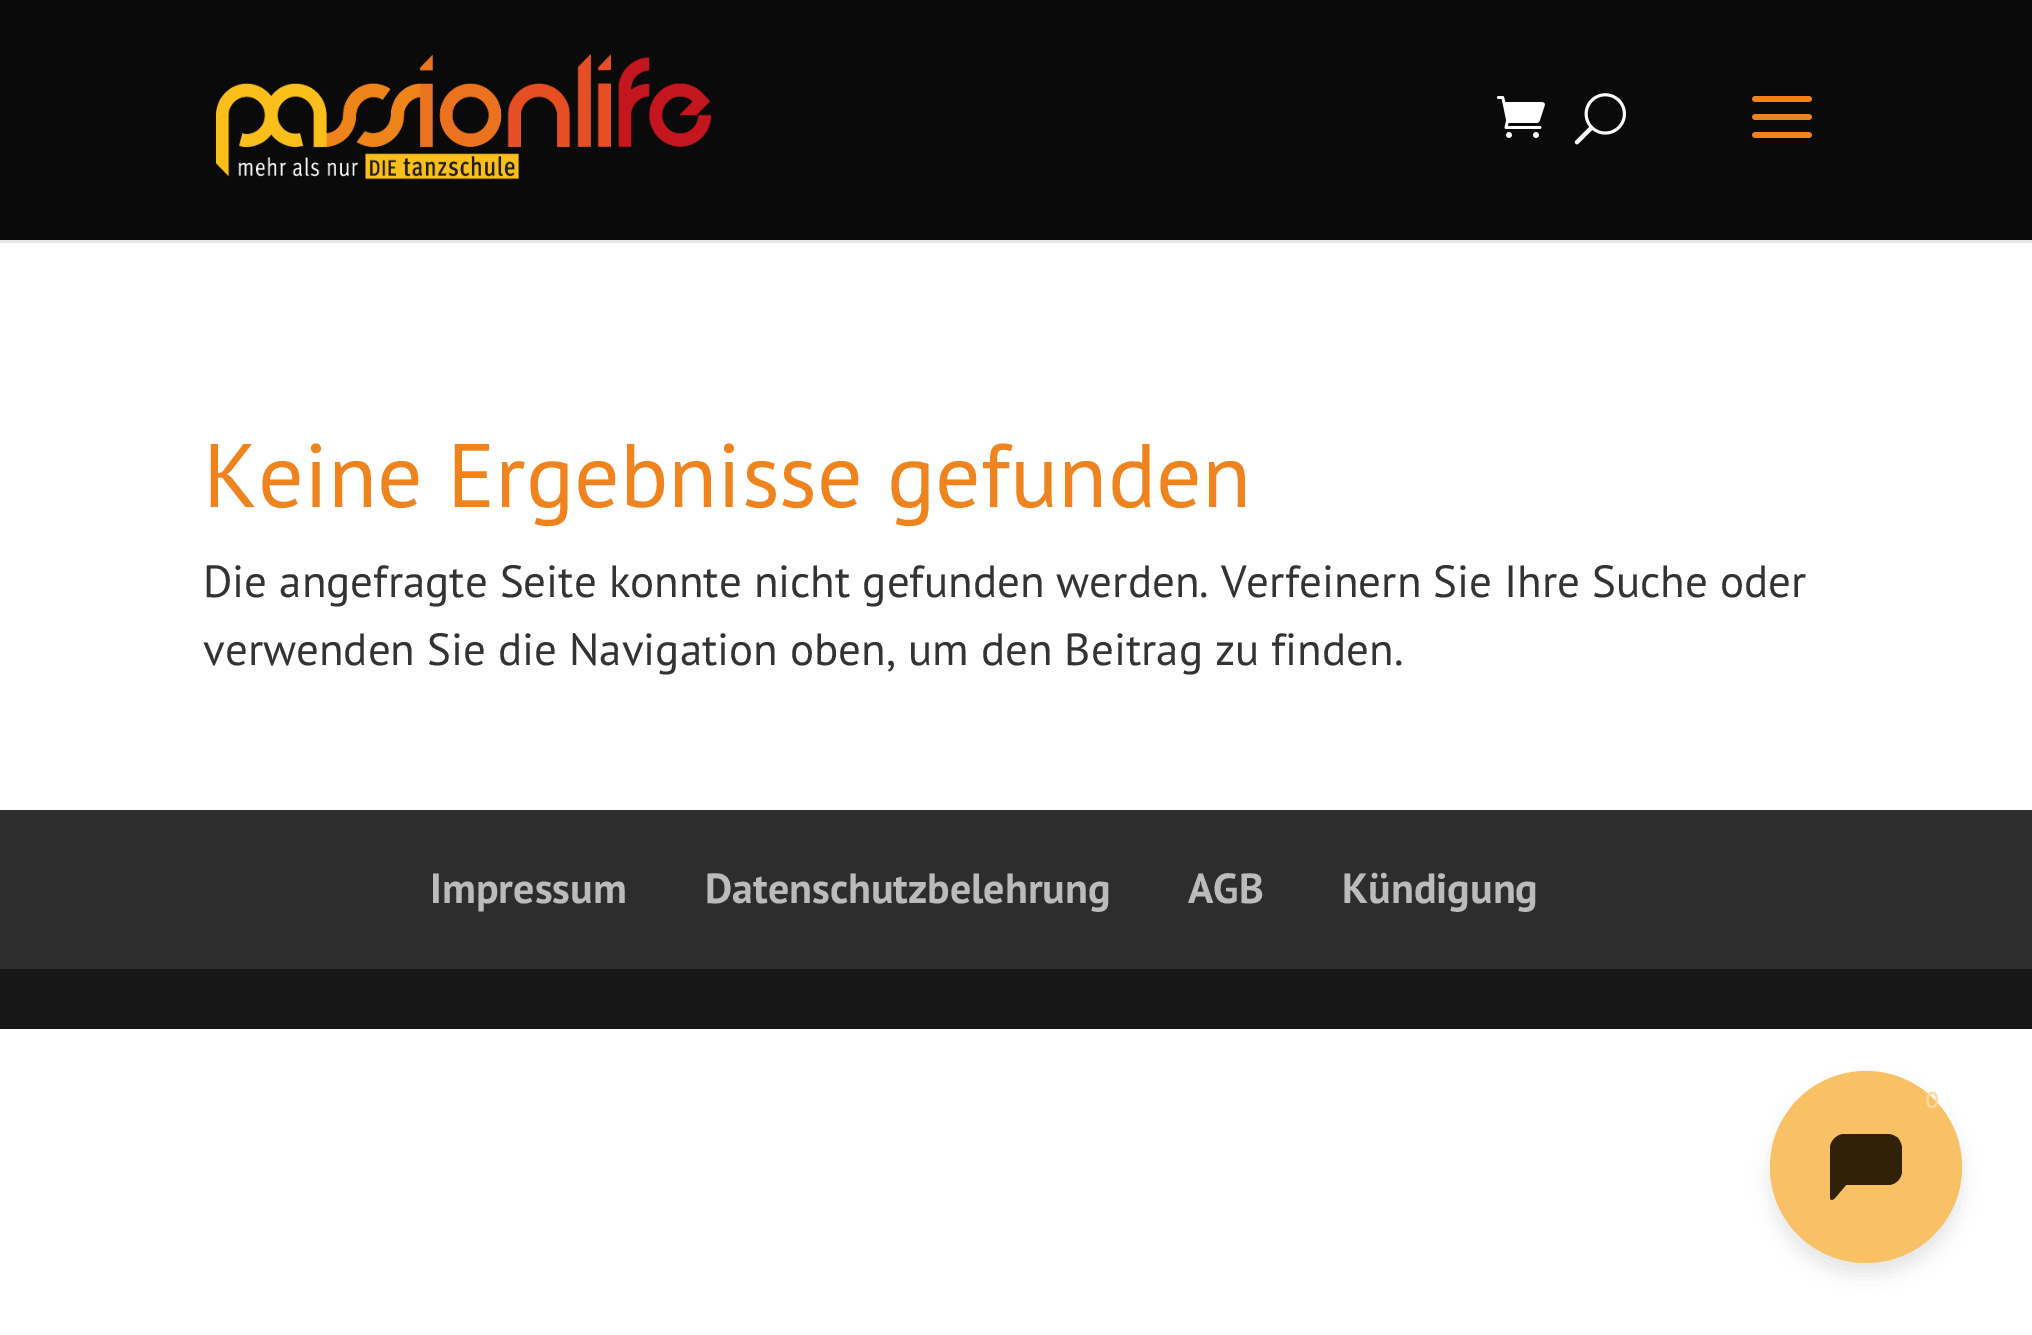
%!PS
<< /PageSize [2032 1335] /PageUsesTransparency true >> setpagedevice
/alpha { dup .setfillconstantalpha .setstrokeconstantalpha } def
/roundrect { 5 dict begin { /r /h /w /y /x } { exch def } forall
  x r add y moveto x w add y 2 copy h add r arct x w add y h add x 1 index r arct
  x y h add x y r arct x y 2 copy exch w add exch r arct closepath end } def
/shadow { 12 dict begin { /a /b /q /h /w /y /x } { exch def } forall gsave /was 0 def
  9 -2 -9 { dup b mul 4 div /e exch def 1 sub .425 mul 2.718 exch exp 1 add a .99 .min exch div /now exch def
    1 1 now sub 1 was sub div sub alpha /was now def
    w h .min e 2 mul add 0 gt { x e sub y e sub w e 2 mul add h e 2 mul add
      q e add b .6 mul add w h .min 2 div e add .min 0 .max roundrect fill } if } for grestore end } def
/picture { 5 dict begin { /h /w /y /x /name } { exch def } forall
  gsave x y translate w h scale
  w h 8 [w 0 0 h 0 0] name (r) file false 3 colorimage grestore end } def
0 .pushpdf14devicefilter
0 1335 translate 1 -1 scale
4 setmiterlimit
1 setgray
0 0 2032 1335 rectfill
0.902 setgray
0 240 2032 3 rectfill
0.039 setgray
0 0 2032 240 rectfill
(img1.rgb) 216 54 495 126 picture
(img2.rgb) 1496 96 49 42 picture
(img3.rgb) 1574 93 52 52 picture
(img4.rgb) 1752 96 60 42 picture
/PTSans-Regular [90 0 0 -90 0 0] selectfont
0.937 0.518 0.118 setrgbcolor
203 507 moveto (Keine Ergebnisse gefunden) show
/PTSans-Regular [45 0 0 -45 0 0] selectfont
0.2 setgray
203 597 moveto (Die angefragte Seite konnte nicht gefunden werden. Verfeinern Sie Ihre Suche oder) show
203 665 moveto (verwenden Sie die Navigation oben, um den Beitrag zu finden.) show
0.176 setgray
0 810 2032 159 rectfill
/PTSans-Bold [42 0 0 -42 0 0] selectfont
0.733 setgray
430 903 moveto (Impressum) show
705 903 moveto (Datenschutzbelehrung) show
1188 903 moveto (AGB) show
1342 903 moveto (Kündigung) show
0.09 setgray
0 969 2032 60 rectfill
0 setgray
1770 1083 192 192 96 9 0.1 shadow
0.973 0.757 0.396 setrgbcolor
newpath 1866 1167 96 0 360 arc closepath fill
0.192 0.129 0.027 setrgbcolor
newpath 1846 1185 moveto 1835 1198 lineto 1832 1201 1830 1200 1830 1197 curveto 1830 1148 lineto 1830 1141 1837 1134 1844 1134 curveto 1888 1134 lineto 1892 1134 1895 1136 1898 1138 curveto 1900 1141 1902 1145 1902 1148 curveto 1902 1171 lineto 1902 1178 1896 1185 1888 1185 curveto closepath eofill
/Inter-Medium [22 0 0 -22 0 0] selectfont
0.98 0.843 0.616 setrgbcolor
1925 1108 moveto (0) show
.poppdf14devicefilter showpage
